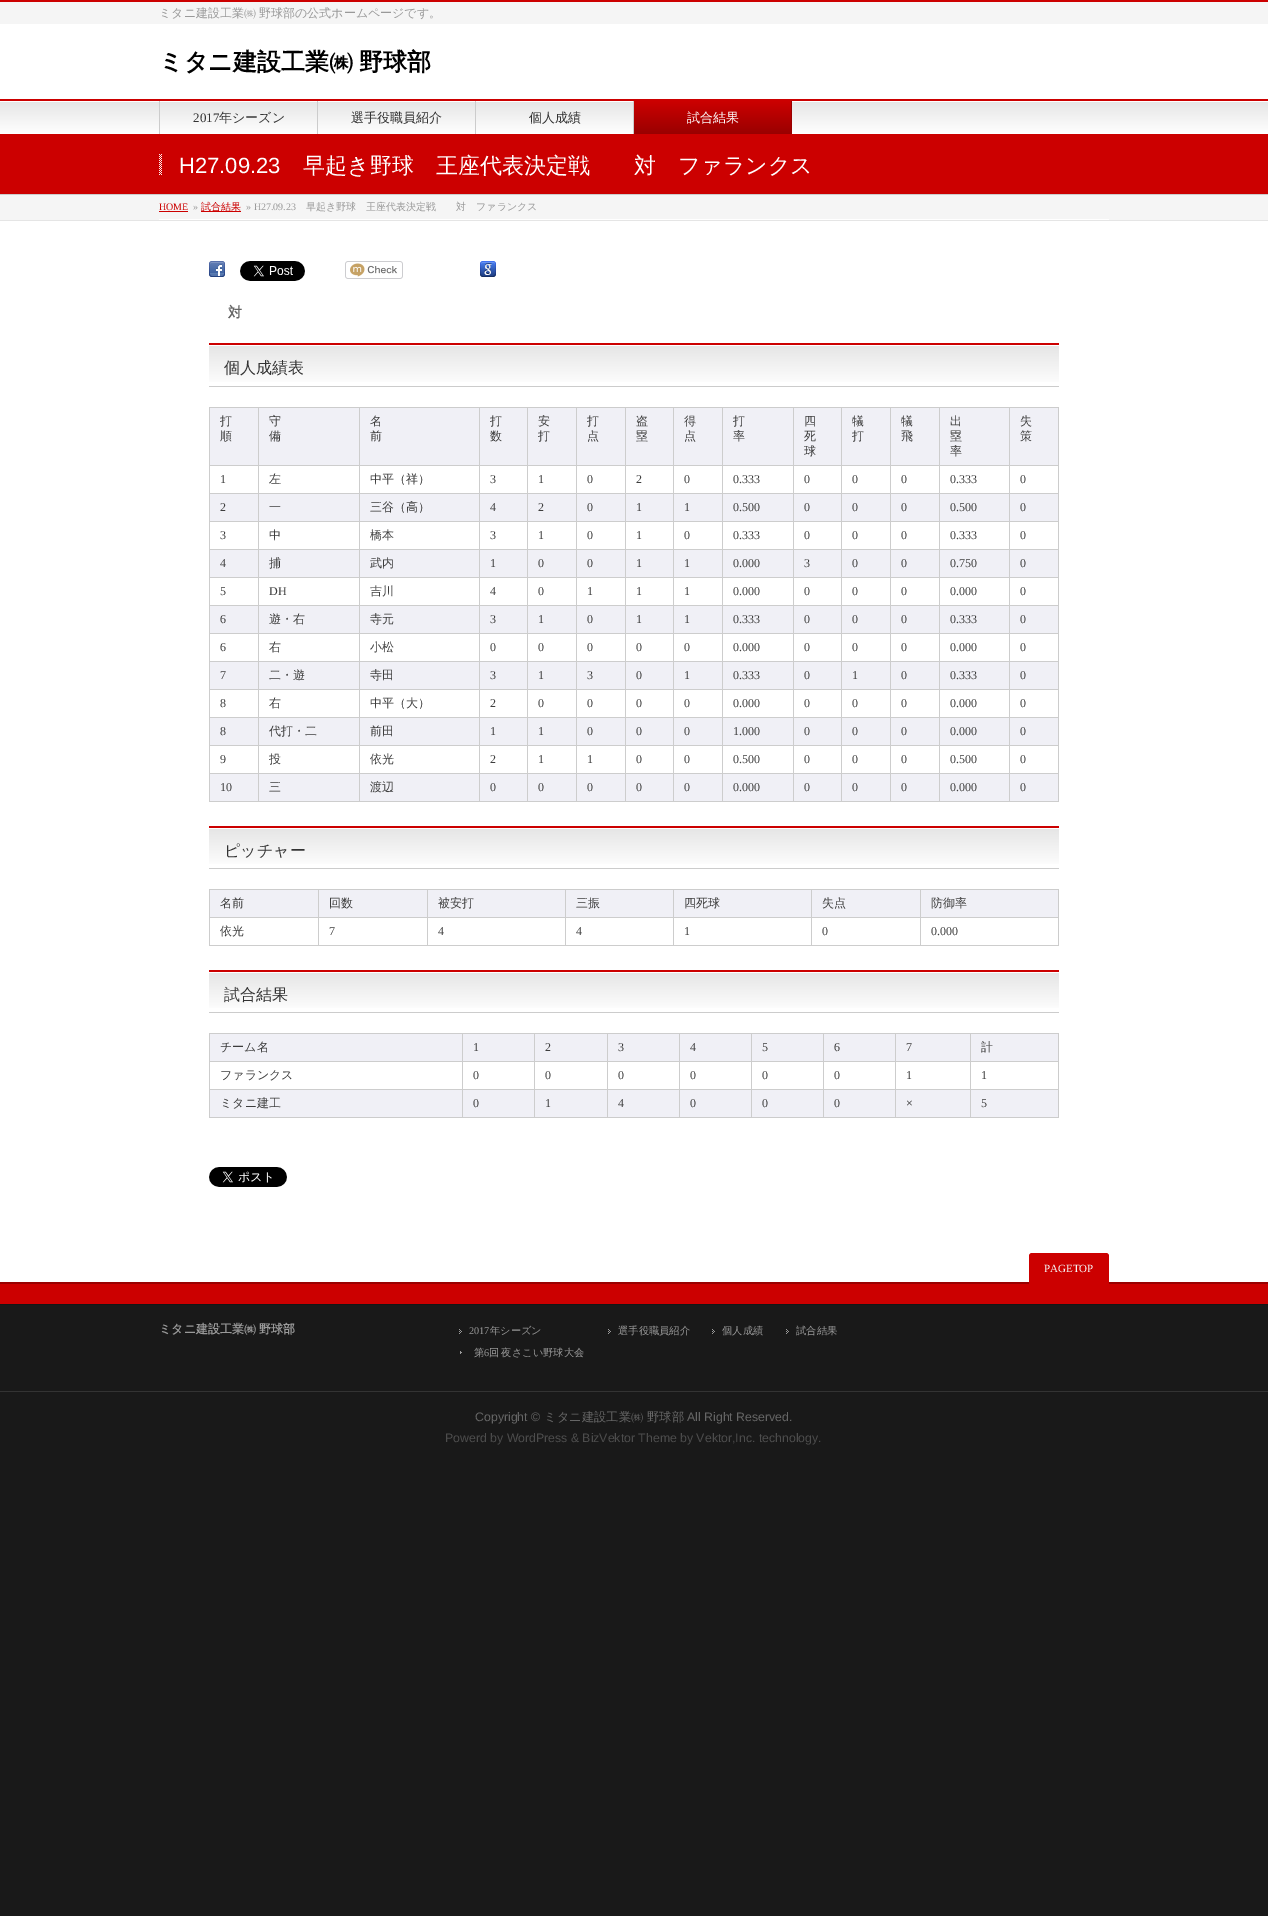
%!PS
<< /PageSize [1268 1916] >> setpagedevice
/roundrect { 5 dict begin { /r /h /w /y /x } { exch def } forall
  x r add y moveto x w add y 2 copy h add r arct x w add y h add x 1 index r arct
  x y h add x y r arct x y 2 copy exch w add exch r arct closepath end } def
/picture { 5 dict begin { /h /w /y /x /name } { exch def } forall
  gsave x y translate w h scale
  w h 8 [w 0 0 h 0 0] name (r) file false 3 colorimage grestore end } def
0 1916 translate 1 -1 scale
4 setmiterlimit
0.098 setgray
0 0 1268 1916 rectfill
0.961 setgray
0 2 1268 22 rectfill
0.8 0 0 setrgbcolor
0 0 1268 2 rectfill
/WenQuanYiZenHei-Medium [12 0 0 -12 0 0] selectfont
0.6 setgray
159 17 moveto (ミタニ建設工業㈱) show
259 17 moveto (野球部の公式ホームページです。) show
1 setgray
0 24 1268 75 rectfill
/WenQuanYiZenHei-Bold [24 0 0 -24 0 0] selectfont
0 setgray
159 70 moveto (ミタニ建設工業㈱) show
359 70 moveto (野球部) show
gsave newpath 0 102 moveto 1268 102 lineto 1268 134 lineto 0 134 lineto closepath clip newpath
<< /ShadingType 2 /ColorSpace /DeviceRGB /Coords [0 101 0 134] /Extend [true true] /Function << /FunctionType 2 /Domain [0 1] /C0 [0.898 0.898 0.898] /C1 [1 1 1] /N 1 >> >> shfill grestore
1 setgray
0 101 1268 1 rectfill
0.8 0 0 setrgbcolor
0 99 1268 2 rectfill
0.8 setgray
159 101 1 33 rectfill
317 101 1 33 rectfill
/LiberationSerif-Regular [13 0 0 -13 0 0] selectfont
0.2 setgray
193 122 moveto (2017) show
/WenQuanYiZenHei-Medium [13 0 0 -13 0 0] selectfont
219 122 moveto (年シーズン) show
0.8 setgray
475 101 1 33 rectfill
0.2 setgray
351 122 moveto (選手役職員紹介) show
0.8 setgray
633 101 1 33 rectfill
0.2 setgray
529 122 moveto (個人成績) show
gsave newpath 634 101 moveto 791 101 lineto 791 134 lineto 634 134 lineto closepath clip newpath
<< /ShadingType 2 /ColorSpace /DeviceRGB /Coords [713 101 713 134] /Extend [true true] /Function << /FunctionType 2 /Domain [0 1] /C0 [0.8 0 0] /C1 [0.6 0 0] /N 1 >> >> shfill grestore
0.6 0 0 setrgbcolor
791 101 1 33 rectfill
1 setgray
687 122 moveto (試合結果) show
0.8 0 0 setrgbcolor
0 134 1268 60 rectfill
0.8 setgray
0 194 1268 1 rectfill
(img1.rgb) 159 154 3 21 picture
/LiberationSans-Regular [22 0 0 -22 0 0] selectfont
1 setgray
179 173 moveto (H27.09.23) show
/WenQuanYiZenHei-Medium [22 0 0 -22 0 0] selectfont
303 173 moveto (早起き野球　王座代表決定戦　　対　ファランクス) show
0.961 setgray
0 195 1268 25 rectfill
0.898 setgray
0 220 1268 1 rectfill
1 setgray
159 219 950 1 rectfill
/LiberationSerif-Regular [10 0 0 -10 0 0] selectfont
0.8 0 0 setrgbcolor
159 210 moveto (HOME) show
159 211 29 1 rectfill
0.6 setgray
193 210 moveto (») show
0.8 0 0 setrgbcolor
201 211 40 1 rectfill
/WenQuanYiZenHei-Medium [10 0 0 -10 0 0] selectfont
201 210 moveto (試合結果) show
/LiberationSerif-Regular [10 0 0 -10 0 0] selectfont
0.6 setgray
246 210 moveto (» H27.09.23) show
/WenQuanYiZenHei-Medium [10 0 0 -10 0 0] selectfont
306 210 moveto (早起き野球　王座代表決定戦　　対　ファランクス) show
1 setgray
0 221 1268 1027 rectfill
(img2.rgb) 209 261 16 16 picture
(img3.rgb) 240 261 65 20 picture
(img4.rgb) 345 261 58 18 picture
(img5.rgb) 480 261 16 16 picture
/WenQuanYiZenHei-Bold [14 0 0 -14 0 0] selectfont
0.4 setgray
228 317 moveto (対) show
gsave newpath 209 346 moveto 1059 346 lineto 1059 382 lineto 209 382 lineto closepath clip newpath
<< /ShadingType 2 /ColorSpace /DeviceRGB /Coords [209 345 209 386] /Extend [true true] /Function << /FunctionType 2 /Domain [0 1] /C0 [0.898 0.898 0.898] /C1 [1 1 1] /N 1 >> >> shfill grestore
0.8 0 0 setrgbcolor
209 343 850 2 rectfill
0.8 setgray
209 386 850 1 rectfill
/WenQuanYiZenHei-Medium [16 0 0 -16 0 0] selectfont
0.2 setgray
224 373 moveto (個人成績表) show
0.804 setgray
209 408 849 394 rectfill
0.8 setgray
209 407 850 1 rectfill
0.941 0.941 0.965 setrgbcolor
210 408 48 57 rectfill
/WenQuanYiZenHei-Medium [12 0 0 -12 0 0] selectfont
0.239 setgray
220 425 moveto (打) show
220 440 moveto (順) show
0.941 0.941 0.965 setrgbcolor
259 408 100 57 rectfill
0.239 setgray
269 425 moveto (守) show
269 440 moveto (備) show
0.941 0.941 0.965 setrgbcolor
360 408 119 57 rectfill
0.239 setgray
370 425 moveto (名) show
370 440 moveto (前) show
0.941 0.941 0.965 setrgbcolor
480 408 47 57 rectfill
0.239 setgray
490 425 moveto (打) show
490 440 moveto (数) show
0.941 0.941 0.965 setrgbcolor
528 408 48 57 rectfill
0.239 setgray
538 425 moveto (安) show
538 440 moveto (打) show
0.941 0.941 0.965 setrgbcolor
577 408 48 57 rectfill
0.239 setgray
587 425 moveto (打) show
587 440 moveto (点) show
0.941 0.941 0.965 setrgbcolor
626 408 47 57 rectfill
0.239 setgray
636 425 moveto (盗) show
636 440 moveto (塁) show
0.941 0.941 0.965 setrgbcolor
674 408 48 57 rectfill
0.239 setgray
684 425 moveto (得) show
684 440 moveto (点) show
0.941 0.941 0.965 setrgbcolor
723 408 70 57 rectfill
0.239 setgray
733 425 moveto (打) show
733 440 moveto (率) show
0.941 0.941 0.965 setrgbcolor
794 408 47 57 rectfill
0.239 setgray
804 425 moveto (四) show
804 440 moveto (死) show
804 455 moveto (球) show
0.941 0.941 0.965 setrgbcolor
842 408 48 57 rectfill
0.239 setgray
852 425 moveto (犠) show
852 440 moveto (打) show
0.941 0.941 0.965 setrgbcolor
891 408 48 57 rectfill
0.239 setgray
901 425 moveto (犠) show
901 440 moveto (飛) show
0.941 0.941 0.965 setrgbcolor
940 408 69 57 rectfill
0.239 setgray
950 425 moveto (出) show
950 440 moveto (塁) show
950 455 moveto (率) show
0.941 0.941 0.965 setrgbcolor
1010 408 48 57 rectfill
0.239 setgray
1020 425 moveto (失) show
1020 440 moveto (策) show
1 setgray
210 466 48 27 rectfill
/LiberationSerif-Regular [12 0 0 -12 0 0] selectfont
0.239 setgray
220 483 moveto (1) show
1 setgray
259 466 100 27 rectfill
/WenQuanYiZenHei-Medium [12 0 0 -12 0 0] selectfont
0.239 setgray
269 483 moveto (左) show
1 setgray
360 466 119 27 rectfill
0.239 setgray
370 483 moveto (中平（祥）) show
1 setgray
480 466 47 27 rectfill
/LiberationSerif-Regular [12 0 0 -12 0 0] selectfont
0.239 setgray
490 483 moveto (3) show
1 setgray
528 466 48 27 rectfill
0.239 setgray
538 483 moveto (1) show
1 setgray
577 466 48 27 rectfill
0.239 setgray
587 483 moveto (0) show
1 setgray
626 466 47 27 rectfill
0.239 setgray
636 483 moveto (2) show
1 setgray
674 466 48 27 rectfill
0.239 setgray
684 483 moveto (0) show
1 setgray
723 466 70 27 rectfill
0.239 setgray
733 483 moveto (0.333) show
1 setgray
794 466 47 27 rectfill
0.239 setgray
804 483 moveto (0) show
1 setgray
842 466 48 27 rectfill
0.239 setgray
852 483 moveto (0) show
1 setgray
891 466 48 27 rectfill
0.239 setgray
901 483 moveto (0) show
1 setgray
940 466 69 27 rectfill
0.239 setgray
950 483 moveto (0.333) show
1 setgray
1010 466 48 27 rectfill
0.8 setgray
1058 773 1 29 rectfill
1058 745 1 29 rectfill
1058 717 1 29 rectfill
1058 689 1 29 rectfill
1058 661 1 29 rectfill
1058 633 1 29 rectfill
1058 605 1 29 rectfill
1058 577 1 29 rectfill
1058 549 1 29 rectfill
1058 521 1 29 rectfill
1058 493 1 29 rectfill
1058 407 1 87 rectfill
0.239 setgray
1020 483 moveto (0) show
0.941 0.941 0.965 setrgbcolor
210 494 48 27 rectfill
0.239 setgray
220 511 moveto (2) show
0.941 0.941 0.965 setrgbcolor
259 494 100 27 rectfill
/WenQuanYiZenHei-Medium [12 0 0 -12 0 0] selectfont
0.239 setgray
269 511 moveto (一) show
0.941 0.941 0.965 setrgbcolor
360 494 119 27 rectfill
0.239 setgray
370 511 moveto (三谷（高）) show
0.941 0.941 0.965 setrgbcolor
480 494 47 27 rectfill
/LiberationSerif-Regular [12 0 0 -12 0 0] selectfont
0.239 setgray
490 511 moveto (4) show
0.941 0.941 0.965 setrgbcolor
528 494 48 27 rectfill
0.239 setgray
538 511 moveto (2) show
0.941 0.941 0.965 setrgbcolor
577 494 48 27 rectfill
0.239 setgray
587 511 moveto (0) show
0.941 0.941 0.965 setrgbcolor
626 494 47 27 rectfill
0.239 setgray
636 511 moveto (1) show
0.941 0.941 0.965 setrgbcolor
674 494 48 27 rectfill
0.239 setgray
684 511 moveto (1) show
0.941 0.941 0.965 setrgbcolor
723 494 70 27 rectfill
0.239 setgray
733 511 moveto (0.500) show
0.941 0.941 0.965 setrgbcolor
794 494 47 27 rectfill
0.239 setgray
804 511 moveto (0) show
0.941 0.941 0.965 setrgbcolor
842 494 48 27 rectfill
0.239 setgray
852 511 moveto (0) show
0.941 0.941 0.965 setrgbcolor
891 494 48 27 rectfill
0.239 setgray
901 511 moveto (0) show
0.941 0.941 0.965 setrgbcolor
940 494 69 27 rectfill
0.239 setgray
950 511 moveto (0.500) show
0.941 0.941 0.965 setrgbcolor
1010 494 48 27 rectfill
0.239 setgray
1020 511 moveto (0) show
1 setgray
210 522 48 27 rectfill
0.239 setgray
220 539 moveto (3) show
1 setgray
259 522 100 27 rectfill
/WenQuanYiZenHei-Medium [12 0 0 -12 0 0] selectfont
0.239 setgray
269 539 moveto (中) show
1 setgray
360 522 119 27 rectfill
0.239 setgray
370 539 moveto (橋本) show
1 setgray
480 522 47 27 rectfill
/LiberationSerif-Regular [12 0 0 -12 0 0] selectfont
0.239 setgray
490 539 moveto (3) show
1 setgray
528 522 48 27 rectfill
0.239 setgray
538 539 moveto (1) show
1 setgray
577 522 48 27 rectfill
0.239 setgray
587 539 moveto (0) show
1 setgray
626 522 47 27 rectfill
0.239 setgray
636 539 moveto (1) show
1 setgray
674 522 48 27 rectfill
0.239 setgray
684 539 moveto (0) show
1 setgray
723 522 70 27 rectfill
0.239 setgray
733 539 moveto (0.333) show
1 setgray
794 522 47 27 rectfill
0.239 setgray
804 539 moveto (0) show
1 setgray
842 522 48 27 rectfill
0.239 setgray
852 539 moveto (0) show
1 setgray
891 522 48 27 rectfill
0.239 setgray
901 539 moveto (0) show
1 setgray
940 522 69 27 rectfill
0.239 setgray
950 539 moveto (0.333) show
1 setgray
1010 522 48 27 rectfill
0.239 setgray
1020 539 moveto (0) show
0.941 0.941 0.965 setrgbcolor
210 550 48 27 rectfill
0.239 setgray
220 567 moveto (4) show
0.941 0.941 0.965 setrgbcolor
259 550 100 27 rectfill
/WenQuanYiZenHei-Medium [12 0 0 -12 0 0] selectfont
0.239 setgray
269 567 moveto (捕) show
0.941 0.941 0.965 setrgbcolor
360 550 119 27 rectfill
0.239 setgray
370 567 moveto (武内) show
0.941 0.941 0.965 setrgbcolor
480 550 47 27 rectfill
/LiberationSerif-Regular [12 0 0 -12 0 0] selectfont
0.239 setgray
490 567 moveto (1) show
0.941 0.941 0.965 setrgbcolor
528 550 48 27 rectfill
0.239 setgray
538 567 moveto (0) show
0.941 0.941 0.965 setrgbcolor
577 550 48 27 rectfill
0.239 setgray
587 567 moveto (0) show
0.941 0.941 0.965 setrgbcolor
626 550 47 27 rectfill
0.239 setgray
636 567 moveto (1) show
0.941 0.941 0.965 setrgbcolor
674 550 48 27 rectfill
0.239 setgray
684 567 moveto (1) show
0.941 0.941 0.965 setrgbcolor
723 550 70 27 rectfill
0.239 setgray
733 567 moveto (0.000) show
0.941 0.941 0.965 setrgbcolor
794 550 47 27 rectfill
0.239 setgray
804 567 moveto (3) show
0.941 0.941 0.965 setrgbcolor
842 550 48 27 rectfill
0.239 setgray
852 567 moveto (0) show
0.941 0.941 0.965 setrgbcolor
891 550 48 27 rectfill
0.239 setgray
901 567 moveto (0) show
0.941 0.941 0.965 setrgbcolor
940 550 69 27 rectfill
0.239 setgray
950 567 moveto (0.750) show
0.941 0.941 0.965 setrgbcolor
1010 550 48 27 rectfill
0.239 setgray
1020 567 moveto (0) show
1 setgray
210 578 48 27 rectfill
0.239 setgray
220 595 moveto (5) show
1 setgray
259 578 100 27 rectfill
0.239 setgray
269 595 moveto (DH) show
1 setgray
360 578 119 27 rectfill
/WenQuanYiZenHei-Medium [12 0 0 -12 0 0] selectfont
0.239 setgray
370 595 moveto (吉川) show
1 setgray
480 578 47 27 rectfill
/LiberationSerif-Regular [12 0 0 -12 0 0] selectfont
0.239 setgray
490 595 moveto (4) show
1 setgray
528 578 48 27 rectfill
0.239 setgray
538 595 moveto (0) show
1 setgray
577 578 48 27 rectfill
0.239 setgray
587 595 moveto (1) show
1 setgray
626 578 47 27 rectfill
0.239 setgray
636 595 moveto (1) show
1 setgray
674 578 48 27 rectfill
0.239 setgray
684 595 moveto (1) show
1 setgray
723 578 70 27 rectfill
0.239 setgray
733 595 moveto (0.000) show
1 setgray
794 578 47 27 rectfill
0.239 setgray
804 595 moveto (0) show
1 setgray
842 578 48 27 rectfill
0.239 setgray
852 595 moveto (0) show
1 setgray
891 578 48 27 rectfill
0.239 setgray
901 595 moveto (0) show
1 setgray
940 578 69 27 rectfill
0.239 setgray
950 595 moveto (0.000) show
1 setgray
1010 578 48 27 rectfill
0.239 setgray
1020 595 moveto (0) show
0.941 0.941 0.965 setrgbcolor
210 606 48 27 rectfill
0.239 setgray
220 623 moveto (6) show
0.941 0.941 0.965 setrgbcolor
259 606 100 27 rectfill
/WenQuanYiZenHei-Medium [12 0 0 -12 0 0] selectfont
0.239 setgray
269 623 moveto (遊・右) show
0.941 0.941 0.965 setrgbcolor
360 606 119 27 rectfill
0.239 setgray
370 623 moveto (寺元) show
0.941 0.941 0.965 setrgbcolor
480 606 47 27 rectfill
/LiberationSerif-Regular [12 0 0 -12 0 0] selectfont
0.239 setgray
490 623 moveto (3) show
0.941 0.941 0.965 setrgbcolor
528 606 48 27 rectfill
0.239 setgray
538 623 moveto (1) show
0.941 0.941 0.965 setrgbcolor
577 606 48 27 rectfill
0.239 setgray
587 623 moveto (0) show
0.941 0.941 0.965 setrgbcolor
626 606 47 27 rectfill
0.239 setgray
636 623 moveto (1) show
0.941 0.941 0.965 setrgbcolor
674 606 48 27 rectfill
0.239 setgray
684 623 moveto (1) show
0.941 0.941 0.965 setrgbcolor
723 606 70 27 rectfill
0.239 setgray
733 623 moveto (0.333) show
0.941 0.941 0.965 setrgbcolor
794 606 47 27 rectfill
0.239 setgray
804 623 moveto (0) show
0.941 0.941 0.965 setrgbcolor
842 606 48 27 rectfill
0.239 setgray
852 623 moveto (0) show
0.941 0.941 0.965 setrgbcolor
891 606 48 27 rectfill
0.239 setgray
901 623 moveto (0) show
0.941 0.941 0.965 setrgbcolor
940 606 69 27 rectfill
0.239 setgray
950 623 moveto (0.333) show
0.941 0.941 0.965 setrgbcolor
1010 606 48 27 rectfill
0.239 setgray
1020 623 moveto (0) show
1 setgray
210 634 48 27 rectfill
0.239 setgray
220 651 moveto (6) show
1 setgray
259 634 100 27 rectfill
/WenQuanYiZenHei-Medium [12 0 0 -12 0 0] selectfont
0.239 setgray
269 651 moveto (右) show
1 setgray
360 634 119 27 rectfill
0.239 setgray
370 651 moveto (小松) show
1 setgray
480 634 47 27 rectfill
/LiberationSerif-Regular [12 0 0 -12 0 0] selectfont
0.239 setgray
490 651 moveto (0) show
1 setgray
528 634 48 27 rectfill
0.239 setgray
538 651 moveto (0) show
1 setgray
577 634 48 27 rectfill
0.239 setgray
587 651 moveto (0) show
1 setgray
626 634 47 27 rectfill
0.239 setgray
636 651 moveto (0) show
1 setgray
674 634 48 27 rectfill
0.239 setgray
684 651 moveto (0) show
1 setgray
723 634 70 27 rectfill
0.239 setgray
733 651 moveto (0.000) show
1 setgray
794 634 47 27 rectfill
0.239 setgray
804 651 moveto (0) show
1 setgray
842 634 48 27 rectfill
0.239 setgray
852 651 moveto (0) show
1 setgray
891 634 48 27 rectfill
0.239 setgray
901 651 moveto (0) show
1 setgray
940 634 69 27 rectfill
0.239 setgray
950 651 moveto (0.000) show
1 setgray
1010 634 48 27 rectfill
0.239 setgray
1020 651 moveto (0) show
0.941 0.941 0.965 setrgbcolor
210 662 48 27 rectfill
0.239 setgray
220 679 moveto (7) show
0.941 0.941 0.965 setrgbcolor
259 662 100 27 rectfill
/WenQuanYiZenHei-Medium [12 0 0 -12 0 0] selectfont
0.239 setgray
269 679 moveto (二・遊) show
0.941 0.941 0.965 setrgbcolor
360 662 119 27 rectfill
0.239 setgray
370 679 moveto (寺田) show
0.941 0.941 0.965 setrgbcolor
480 662 47 27 rectfill
/LiberationSerif-Regular [12 0 0 -12 0 0] selectfont
0.239 setgray
490 679 moveto (3) show
0.941 0.941 0.965 setrgbcolor
528 662 48 27 rectfill
0.239 setgray
538 679 moveto (1) show
0.941 0.941 0.965 setrgbcolor
577 662 48 27 rectfill
0.239 setgray
587 679 moveto (3) show
0.941 0.941 0.965 setrgbcolor
626 662 47 27 rectfill
0.239 setgray
636 679 moveto (0) show
0.941 0.941 0.965 setrgbcolor
674 662 48 27 rectfill
0.239 setgray
684 679 moveto (1) show
0.941 0.941 0.965 setrgbcolor
723 662 70 27 rectfill
0.239 setgray
733 679 moveto (0.333) show
0.941 0.941 0.965 setrgbcolor
794 662 47 27 rectfill
0.239 setgray
804 679 moveto (0) show
0.941 0.941 0.965 setrgbcolor
842 662 48 27 rectfill
0.239 setgray
852 679 moveto (1) show
0.941 0.941 0.965 setrgbcolor
891 662 48 27 rectfill
0.239 setgray
901 679 moveto (0) show
0.941 0.941 0.965 setrgbcolor
940 662 69 27 rectfill
0.239 setgray
950 679 moveto (0.333) show
0.941 0.941 0.965 setrgbcolor
1010 662 48 27 rectfill
0.239 setgray
1020 679 moveto (0) show
1 setgray
210 690 48 27 rectfill
0.239 setgray
220 707 moveto (8) show
1 setgray
259 690 100 27 rectfill
/WenQuanYiZenHei-Medium [12 0 0 -12 0 0] selectfont
0.239 setgray
269 707 moveto (右) show
1 setgray
360 690 119 27 rectfill
0.239 setgray
370 707 moveto (中平（大）) show
1 setgray
480 690 47 27 rectfill
/LiberationSerif-Regular [12 0 0 -12 0 0] selectfont
0.239 setgray
490 707 moveto (2) show
1 setgray
528 690 48 27 rectfill
0.239 setgray
538 707 moveto (0) show
1 setgray
577 690 48 27 rectfill
0.239 setgray
587 707 moveto (0) show
1 setgray
626 690 47 27 rectfill
0.239 setgray
636 707 moveto (0) show
1 setgray
674 690 48 27 rectfill
0.239 setgray
684 707 moveto (0) show
1 setgray
723 690 70 27 rectfill
0.239 setgray
733 707 moveto (0.000) show
1 setgray
794 690 47 27 rectfill
0.239 setgray
804 707 moveto (0) show
1 setgray
842 690 48 27 rectfill
0.239 setgray
852 707 moveto (0) show
1 setgray
891 690 48 27 rectfill
0.239 setgray
901 707 moveto (0) show
1 setgray
940 690 69 27 rectfill
0.239 setgray
950 707 moveto (0.000) show
1 setgray
1010 690 48 27 rectfill
0.239 setgray
1020 707 moveto (0) show
0.941 0.941 0.965 setrgbcolor
210 718 48 27 rectfill
0.239 setgray
220 735 moveto (8) show
0.941 0.941 0.965 setrgbcolor
259 718 100 27 rectfill
/WenQuanYiZenHei-Medium [12 0 0 -12 0 0] selectfont
0.239 setgray
269 735 moveto (代打・二) show
0.941 0.941 0.965 setrgbcolor
360 718 119 27 rectfill
0.239 setgray
370 735 moveto (前田) show
0.941 0.941 0.965 setrgbcolor
480 718 47 27 rectfill
/LiberationSerif-Regular [12 0 0 -12 0 0] selectfont
0.239 setgray
490 735 moveto (1) show
0.941 0.941 0.965 setrgbcolor
528 718 48 27 rectfill
0.239 setgray
538 735 moveto (1) show
0.941 0.941 0.965 setrgbcolor
577 718 48 27 rectfill
0.239 setgray
587 735 moveto (0) show
0.941 0.941 0.965 setrgbcolor
626 718 47 27 rectfill
0.239 setgray
636 735 moveto (0) show
0.941 0.941 0.965 setrgbcolor
674 718 48 27 rectfill
0.239 setgray
684 735 moveto (0) show
0.941 0.941 0.965 setrgbcolor
723 718 70 27 rectfill
0.239 setgray
733 735 moveto (1.000) show
0.941 0.941 0.965 setrgbcolor
794 718 47 27 rectfill
0.239 setgray
804 735 moveto (0) show
0.941 0.941 0.965 setrgbcolor
842 718 48 27 rectfill
0.239 setgray
852 735 moveto (0) show
0.941 0.941 0.965 setrgbcolor
891 718 48 27 rectfill
0.239 setgray
901 735 moveto (0) show
0.941 0.941 0.965 setrgbcolor
940 718 69 27 rectfill
0.239 setgray
950 735 moveto (0.000) show
0.941 0.941 0.965 setrgbcolor
1010 718 48 27 rectfill
0.239 setgray
1020 735 moveto (0) show
1 setgray
210 746 48 27 rectfill
0.239 setgray
220 763 moveto (9) show
1 setgray
259 746 100 27 rectfill
/WenQuanYiZenHei-Medium [12 0 0 -12 0 0] selectfont
0.239 setgray
269 763 moveto (投) show
1 setgray
360 746 119 27 rectfill
0.239 setgray
370 763 moveto (依光) show
1 setgray
480 746 47 27 rectfill
/LiberationSerif-Regular [12 0 0 -12 0 0] selectfont
0.239 setgray
490 763 moveto (2) show
1 setgray
528 746 48 27 rectfill
0.239 setgray
538 763 moveto (1) show
1 setgray
577 746 48 27 rectfill
0.239 setgray
587 763 moveto (1) show
1 setgray
626 746 47 27 rectfill
0.239 setgray
636 763 moveto (0) show
1 setgray
674 746 48 27 rectfill
0.239 setgray
684 763 moveto (0) show
1 setgray
723 746 70 27 rectfill
0.239 setgray
733 763 moveto (0.500) show
1 setgray
794 746 47 27 rectfill
0.239 setgray
804 763 moveto (0) show
1 setgray
842 746 48 27 rectfill
0.239 setgray
852 763 moveto (0) show
1 setgray
891 746 48 27 rectfill
0.239 setgray
901 763 moveto (0) show
1 setgray
940 746 69 27 rectfill
0.239 setgray
950 763 moveto (0.500) show
1 setgray
1010 746 48 27 rectfill
0.239 setgray
1020 763 moveto (0) show
0.941 0.941 0.965 setrgbcolor
210 774 48 27 rectfill
0.239 setgray
220 791 moveto (10) show
0.941 0.941 0.965 setrgbcolor
259 774 100 27 rectfill
/WenQuanYiZenHei-Medium [12 0 0 -12 0 0] selectfont
0.239 setgray
269 791 moveto (三) show
0.941 0.941 0.965 setrgbcolor
360 774 119 27 rectfill
0.239 setgray
370 791 moveto (渡辺) show
0.941 0.941 0.965 setrgbcolor
480 774 47 27 rectfill
/LiberationSerif-Regular [12 0 0 -12 0 0] selectfont
0.239 setgray
490 791 moveto (0) show
0.941 0.941 0.965 setrgbcolor
528 774 48 27 rectfill
0.239 setgray
538 791 moveto (0) show
0.941 0.941 0.965 setrgbcolor
577 774 48 27 rectfill
0.239 setgray
587 791 moveto (0) show
0.941 0.941 0.965 setrgbcolor
626 774 47 27 rectfill
0.239 setgray
636 791 moveto (0) show
0.941 0.941 0.965 setrgbcolor
674 774 48 27 rectfill
0.239 setgray
684 791 moveto (0) show
0.941 0.941 0.965 setrgbcolor
723 774 70 27 rectfill
0.239 setgray
733 791 moveto (0.000) show
0.941 0.941 0.965 setrgbcolor
794 774 47 27 rectfill
0.239 setgray
804 791 moveto (0) show
0.941 0.941 0.965 setrgbcolor
842 774 48 27 rectfill
0.239 setgray
852 791 moveto (0) show
0.941 0.941 0.965 setrgbcolor
891 774 48 27 rectfill
0.239 setgray
901 791 moveto (0) show
0.941 0.941 0.965 setrgbcolor
940 774 69 27 rectfill
0.239 setgray
950 791 moveto (0.000) show
0.941 0.941 0.965 setrgbcolor
1010 774 48 27 rectfill
0.239 setgray
1020 791 moveto (0) show
gsave newpath 209 829 moveto 1059 829 lineto 1059 864 lineto 209 864 lineto closepath clip newpath
<< /ShadingType 2 /ColorSpace /DeviceRGB /Coords [209 828 209 868] /Extend [true true] /Function << /FunctionType 2 /Domain [0 1] /C0 [0.898 0.898 0.898] /C1 [1 1 1] /N 1 >> >> shfill grestore
0.8 0 0 setrgbcolor
209 826 850 2 rectfill
0.8 setgray
209 868 850 1 rectfill
/WenQuanYiZenHei-Medium [16 0 0 -16 0 0] selectfont
0.2 setgray
224 856 moveto (ピッチャー) show
0.804 setgray
209 890 849 56 rectfill
0.8 setgray
209 889 850 1 rectfill
0.941 0.941 0.965 setrgbcolor
210 890 108 27 rectfill
/WenQuanYiZenHei-Medium [12 0 0 -12 0 0] selectfont
0.239 setgray
220 907 moveto (名前) show
0.941 0.941 0.965 setrgbcolor
319 890 108 27 rectfill
0.239 setgray
329 907 moveto (回数) show
0.941 0.941 0.965 setrgbcolor
428 890 137 27 rectfill
0.239 setgray
438 907 moveto (被安打) show
0.941 0.941 0.965 setrgbcolor
566 890 107 27 rectfill
0.239 setgray
576 907 moveto (三振) show
0.941 0.941 0.965 setrgbcolor
674 890 137 27 rectfill
0.239 setgray
684 907 moveto (四死球) show
0.941 0.941 0.965 setrgbcolor
812 890 108 27 rectfill
0.239 setgray
822 907 moveto (失点) show
0.941 0.941 0.965 setrgbcolor
921 890 137 27 rectfill
0.239 setgray
931 907 moveto (防御率) show
1 setgray
210 918 108 27 rectfill
0.239 setgray
220 935 moveto (依光) show
1 setgray
319 918 108 27 rectfill
/LiberationSerif-Regular [12 0 0 -12 0 0] selectfont
0.239 setgray
329 935 moveto (7) show
1 setgray
428 918 137 27 rectfill
0.239 setgray
438 935 moveto (4) show
1 setgray
566 918 107 27 rectfill
0.239 setgray
576 935 moveto (4) show
1 setgray
674 918 137 27 rectfill
0.239 setgray
684 935 moveto (1) show
1 setgray
812 918 108 27 rectfill
0.239 setgray
822 935 moveto (0) show
1 setgray
921 918 137 27 rectfill
0.8 setgray
1058 889 1 57 rectfill
0.239 setgray
931 935 moveto (0.000) show
gsave newpath 209 973 moveto 1059 973 lineto 1059 1008 lineto 209 1008 lineto closepath clip newpath
<< /ShadingType 2 /ColorSpace /DeviceRGB /Coords [209 972 209 1012] /Extend [true true] /Function << /FunctionType 2 /Domain [0 1] /C0 [0.898 0.898 0.898] /C1 [1 1 1] /N 1 >> >> shfill grestore
0.8 0 0 setrgbcolor
209 970 850 2 rectfill
0.8 setgray
209 1012 850 1 rectfill
/WenQuanYiZenHei-Medium [16 0 0 -16 0 0] selectfont
0.2 setgray
224 1000 moveto (試合結果) show
0.804 setgray
209 1033 849 84 rectfill
0.941 0.941 0.965 setrgbcolor
210 1034 252 27 rectfill
/WenQuanYiZenHei-Medium [12 0 0 -12 0 0] selectfont
0.239 setgray
220 1051 moveto (チーム名) show
0.941 0.941 0.965 setrgbcolor
463 1034 71 27 rectfill
/LiberationSerif-Regular [12 0 0 -12 0 0] selectfont
0.239 setgray
473 1051 moveto (1) show
0.941 0.941 0.965 setrgbcolor
535 1034 72 27 rectfill
0.239 setgray
545 1051 moveto (2) show
0.941 0.941 0.965 setrgbcolor
608 1034 71 27 rectfill
0.239 setgray
618 1051 moveto (3) show
0.941 0.941 0.965 setrgbcolor
680 1034 71 27 rectfill
0.239 setgray
690 1051 moveto (4) show
0.941 0.941 0.965 setrgbcolor
752 1034 71 27 rectfill
0.239 setgray
762 1051 moveto (5) show
0.941 0.941 0.965 setrgbcolor
824 1034 71 27 rectfill
0.239 setgray
834 1051 moveto (6) show
0.941 0.941 0.965 setrgbcolor
896 1034 74 27 rectfill
0.239 setgray
906 1051 moveto (7) show
0.941 0.941 0.965 setrgbcolor
971 1034 87 27 rectfill
/WenQuanYiZenHei-Medium [12 0 0 -12 0 0] selectfont
0.239 setgray
981 1051 moveto (計) show
1 setgray
210 1062 252 27 rectfill
0.239 setgray
220 1079 moveto (ファランクス) show
1 setgray
463 1062 71 27 rectfill
/LiberationSerif-Regular [12 0 0 -12 0 0] selectfont
0.239 setgray
473 1079 moveto (0) show
1 setgray
535 1062 72 27 rectfill
0.239 setgray
545 1079 moveto (0) show
1 setgray
608 1062 71 27 rectfill
0.239 setgray
618 1079 moveto (0) show
1 setgray
680 1062 71 27 rectfill
0.239 setgray
690 1079 moveto (0) show
1 setgray
752 1062 71 27 rectfill
0.239 setgray
762 1079 moveto (0) show
1 setgray
824 1062 71 27 rectfill
0.239 setgray
834 1079 moveto (0) show
1 setgray
896 1062 74 27 rectfill
0.239 setgray
906 1079 moveto (1) show
1 setgray
971 1062 87 27 rectfill
0.8 setgray
1058 1089 1 29 rectfill
1058 1033 1 57 rectfill
0.239 setgray
981 1079 moveto (1) show
0.941 0.941 0.965 setrgbcolor
210 1090 252 27 rectfill
/WenQuanYiZenHei-Medium [12 0 0 -12 0 0] selectfont
0.239 setgray
220 1107 moveto (ミタニ建工) show
0.941 0.941 0.965 setrgbcolor
463 1090 71 27 rectfill
/LiberationSerif-Regular [12 0 0 -12 0 0] selectfont
0.239 setgray
473 1107 moveto (0) show
0.941 0.941 0.965 setrgbcolor
535 1090 72 27 rectfill
0.239 setgray
545 1107 moveto (1) show
0.941 0.941 0.965 setrgbcolor
608 1090 71 27 rectfill
0.239 setgray
618 1107 moveto (4) show
0.941 0.941 0.965 setrgbcolor
680 1090 71 27 rectfill
0.239 setgray
690 1107 moveto (0) show
0.941 0.941 0.965 setrgbcolor
752 1090 71 27 rectfill
0.239 setgray
762 1107 moveto (0) show
0.941 0.941 0.965 setrgbcolor
824 1090 71 27 rectfill
0.239 setgray
834 1107 moveto (0) show
0.941 0.941 0.965 setrgbcolor
896 1090 74 27 rectfill
0.239 setgray
906 1107 moveto (×) show
0.941 0.941 0.965 setrgbcolor
971 1090 87 27 rectfill
0.8 setgray
209 1117 850 1 rectfill
0.239 setgray
981 1107 moveto (5) show
(img6.rgb) 209 1167 78 20 picture
1 setgray
0 1248 1268 34 rectfill
0.8 0 0 setrgbcolor
0 1284 1268 20 rectfill
0.6 0 0 setrgbcolor
0 1282 1268 2 rectfill
0.8 0 0 setrgbcolor
1029 1253 80 39 3 roundrect fill
/LiberationSerif-Regular [11 0 0 -11 0 0] selectfont
0.961 setgray
1044 1272 moveto (PAGETOP) show
0.082 setgray
0 1304 1268 1 rectfill
/WenQuanYiZenHei-Bold [12 0 0 -12 0 0] selectfont
0.6 setgray
159 1333 moveto (ミタニ建設工業㈱) show
259 1333 moveto (野球部) show
(img7.rgb) 459 1329 3 5 picture
/LiberationSerif-Regular [10.25 0 0 -10.25 0 0] selectfont
469 1334 moveto (2017) show
/WenQuanYiZenHei-Medium [10.25 0 0 -10.25 0 0] selectfont
490 1334 moveto (年シーズン) show
(img8.rgb) 460 1351 2 3 picture
474 1356 moveto (第) show
/LiberationSerif-Regular [10.25 0 0 -10.25 0 0] selectfont
484 1356 moveto (6) show
/WenQuanYiZenHei-Medium [10.25 0 0 -10.25 0 0] selectfont
489 1356 moveto -1 0 32 (回 夜さこい野球大会) widthshow
(img7.rgb) 608 1329 3 5 picture
618 1334 moveto (選手役職員紹介) show
(img7.rgb) 712 1329 3 5 picture
722 1334 moveto (個人成績) show
(img7.rgb) 786 1329 3 5 picture
796 1334 moveto (試合結果) show
0.2 setgray
0 1391 1268 1 rectfill
/LiberationSans-Regular [12.3 0 0 -12.3 0 0] selectfont
0.4 setgray
475 1421 moveto (Copyright ©) show
/WenQuanYiZenHei-Medium [12.3 0 0 -12.3 0 0] selectfont
544 1421 moveto (ミタニ建設工業㈱) show
647 1421 moveto (野球部) show
/LiberationSans-Regular [12.3 0 0 -12.3 0 0] selectfont
687 1421 moveto (All Right Reserved.) show
0.302 setgray
445 1442 moveto (Powerd by WordPress & BizVektor Theme by Vektor,Inc. technology.) show
showpage
